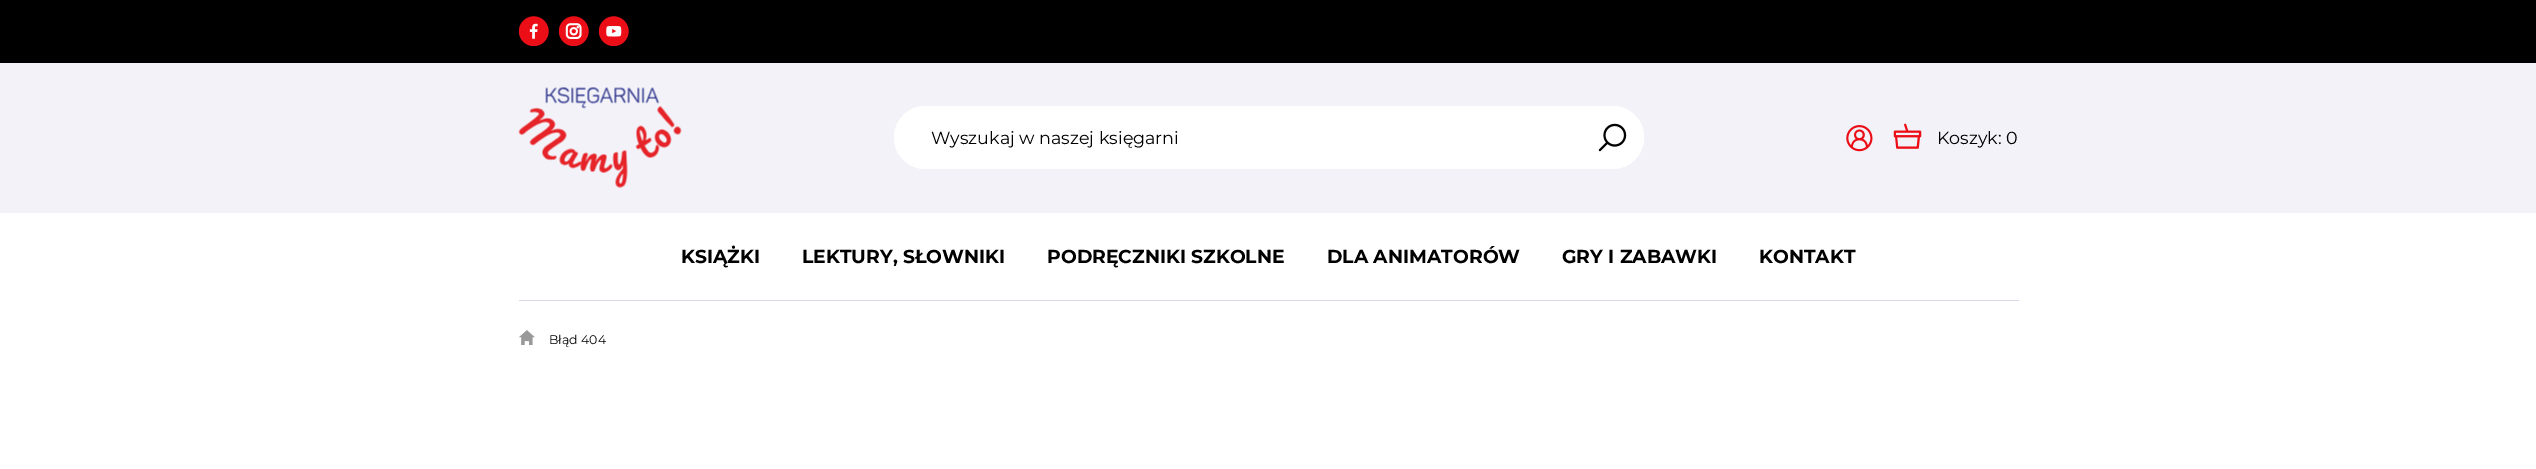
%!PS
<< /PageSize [2536 469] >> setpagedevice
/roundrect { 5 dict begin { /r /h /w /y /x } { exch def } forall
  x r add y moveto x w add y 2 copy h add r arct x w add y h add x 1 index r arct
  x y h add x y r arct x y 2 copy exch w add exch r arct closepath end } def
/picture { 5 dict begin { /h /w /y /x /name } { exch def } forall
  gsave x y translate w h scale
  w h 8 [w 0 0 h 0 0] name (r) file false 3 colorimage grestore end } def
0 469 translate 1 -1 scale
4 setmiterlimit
1 setgray
0 0 2536 469 rectfill
0 setgray
0 0 2536 63 rectfill
(img1.rgb) 519 16 30 30 picture
(img2.rgb) 559 16 30 30 picture
(img3.rgb) 599 16 30 30 picture
0.949 0.949 0.973 setrgbcolor
0 63 2536 150 rectfill
(img4.rgb) 518 87 164 101 picture
1 setgray
894 106 750 63 31.5 roundrect fill
894 106 712 63 31.5 roundrect fill
/Montserrat-Regular [17.5 0 0 -17.5 0 0] selectfont
0 setgray
931 144 moveto (Wyszukaj w naszej księgarni) show
1 setgray
newpath 1612.5 137.5 31.5 0 360 arc closepath fill
(img5.rgb) 1598 123 29 29 picture
(img6.rgb) 1846 125 27 27 picture
(img7.rgb) 1893 123 29 26 picture
0 setgray
1937 144 moveto (Koszyk: 0) show
0.851 0.851 0.922 setrgbcolor
519 300 1500 1 rectfill
/Montserrat-Bold [18.75 0 0 -18.75 0 0] selectfont
0 setgray
681 263 moveto (KSIĄŻKI) show
802 263 moveto (LEKTURY, SŁOWNIKI) show
1047 263 moveto (PODRĘCZNIKI SZKOLNE) show
1327 263 moveto (DLA ANIMATORÓW) show
1562 263 moveto (GRY I ZABAWKI) show
1759 263 moveto (KONTAKT) show
(img8.rgb) 519 330 16 15 picture
/Montserrat-Regular [12.5 0 0 -12.5 0 0] selectfont
549 344 moveto (Błąd 404) show
showpage
